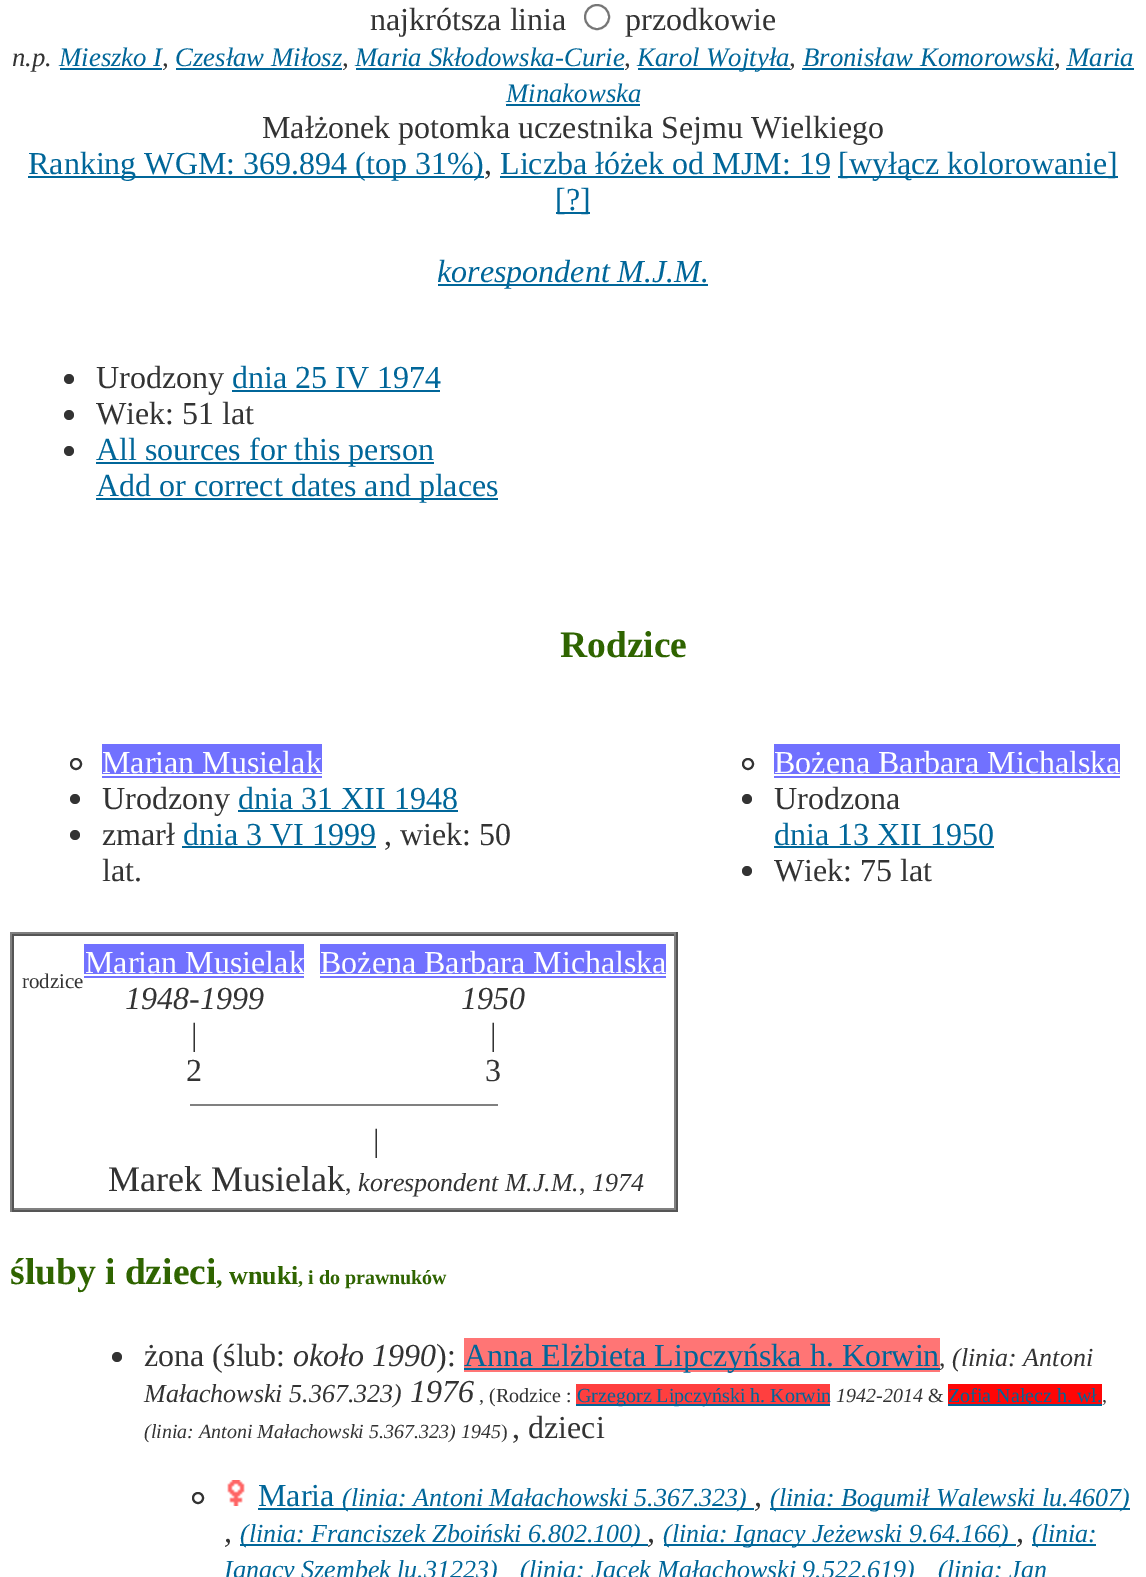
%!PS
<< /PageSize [1146 1577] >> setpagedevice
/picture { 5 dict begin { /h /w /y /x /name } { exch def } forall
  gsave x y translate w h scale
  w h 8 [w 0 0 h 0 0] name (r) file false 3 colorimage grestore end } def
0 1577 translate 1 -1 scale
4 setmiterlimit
1 setgray
0 0 1146 1577 rectfill
/LiberationSerif-Regular [32 0 0 -32 0 0] selectfont
0.2 setgray
370 30 moveto (najkrótsza linia) show
0.463 setgray
2 setlinewidth
newpath 597 17 12 0 360 arc closepath stroke
0.2 setgray
625 30 moveto (przodkowie) show
/LiberationSerif-Italic [26.75 0 0 -26.75 0 0] selectfont
12 66 moveto (n.p.) show
0 0.4 0.6 setrgbcolor
59 66 moveto (Mieszko I) show
0.2 setgray
162 66 moveto (,) show
0 0.4 0.6 setrgbcolor
60 68 102 2 rectfill
175 66 moveto (Czesław Miłosz) show
0.2 setgray
342 66 moveto (,) show
0 0.4 0.6 setrgbcolor
176 68 166 2 rectfill
355 66 moveto (Maria Skłodowska-Curie) show
0.2 setgray
624 66 moveto (,) show
0 0.4 0.6 setrgbcolor
356 68 268 2 rectfill
638 68 152 2 rectfill
637 66 moveto (Karol Wojtyła) show
0.2 setgray
789 66 moveto (,) show
0 0.4 0.6 setrgbcolor
803 66 moveto (Bronisław Komorowski) show
0.2 setgray
1054 66 moveto (,) show
0 0.4 0.6 setrgbcolor
802 68 252 2 rectfill
1066 68 68 2 rectfill
1067 66 moveto (Maria) show
506 102 moveto (Minakowska) show
506 104 134 2 rectfill
/LiberationSerif-Regular [32 0 0 -32 0 0] selectfont
0.2 setgray
262 138 moveto (Małżonek potomka uczestnika Sejmu Wielkiego) show
0 0.4 0.6 setrgbcolor
28 176 456 2 rectfill
28 174 moveto (Ranking WGM: 369.894 \(top 31%\)) show
0.2 setgray
484 174 moveto (,) show
0 0.4 0.6 setrgbcolor
500 174 moveto (Liczba łóżek od MJM: 19) show
500 176 330 2 rectfill
838 176 280 2 rectfill
838 174 moveto ([wyłącz kolorowanie]) show
556 212 34 2 rectfill
555 210 moveto ([?]) show
438 284 270 2 rectfill
/LiberationSerif-Italic [32 0 0 -32 0 0] selectfont
437 282 moveto (korespondent M.J.M.) show
0.2 setgray
newpath 69 379 5 0 360 arc closepath fill
/LiberationSerif-Regular [32 0 0 -32 0 0] selectfont
96 388 moveto (Urodzony) show
0 0.4 0.6 setrgbcolor
232 388 moveto (dnia 25 IV 1974) show
232 390 208 2 rectfill
0.2 setgray
newpath 69 415 5 0 360 arc closepath fill
96 424 moveto (Wiek: 51 lat) show
newpath 69 451 5 0 360 arc closepath fill
0 0.4 0.6 setrgbcolor
96 462 338 2 rectfill
96 460 moveto (All sources for this person) show
96 498 402 2 rectfill
96 496 moveto (Add or correct dates and places) show
/LiberationSerif-Bold [37.5 0 0 -37.5 0 0] selectfont
0.184 0.392 0 setrgbcolor
560 657 moveto (Rodzice) show
0.2 setgray
newpath 76 764 5 0 360 arc closepath stroke
0.443 0.443 1 setrgbcolor
102 744 220 34 rectfill
/LiberationSerif-Regular [32 0 0 -32 0 0] selectfont
1 setgray
102 773 moveto (Marian Musielak) show
102 774 220 2 rectfill
0.2 setgray
newpath 75 799 5 0 360 arc closepath fill
102 809 moveto (Urodzony) show
0 0.4 0.6 setrgbcolor
238 809 moveto (dnia 31 XII 1948) show
238 810 220 2 rectfill
0.2 setgray
newpath 75 835 5 0 360 arc closepath fill
102 845 moveto (zmarł) show
0 0.4 0.6 setrgbcolor
183 845 moveto (dnia 3 VI 1999) show
182 846 194 2 rectfill
0.2 setgray
384 845 moveto (, wiek: 50) show
102 881 moveto (lat.) show
newpath 748 764 5 0 360 arc closepath stroke
0.443 0.443 1 setrgbcolor
774 744 346 34 rectfill
1 setgray
774 773 moveto (Bożena Barbara Michalska) show
774 774 346 2 rectfill
0.2 setgray
newpath 747 799 5 0 360 arc closepath fill
774 809 moveto (Urodzona) show
0 0.4 0.6 setrgbcolor
774 845 moveto (dnia 13 XII 1950) show
774 846 220 2 rectfill
0.2 setgray
newpath 747 871 5 0 360 arc closepath fill
774 881 moveto (Wiek: 75 lat) show
0.502 setgray
10 932 668 2 rectfill
0.333 setgray
676 932 2 280 rectfill
10 1210 668 2 rectfill
0.502 setgray
10 932 2 280 rectfill
0.333 setgray
12 934 664 2 rectfill
0.502 setgray
674 934 2 276 rectfill
12 1208 664 2 rectfill
0.333 setgray
12 934 2 276 rectfill
/LiberationSerif-Regular [21 0 0 -21 0 0] selectfont
0.2 setgray
22 988 moveto (rodzice) show
0.443 0.443 1 setrgbcolor
84 944 220 34 rectfill
/LiberationSerif-Regular [32 0 0 -32 0 0] selectfont
1 setgray
85 973 moveto (Marian Musielak) show
84 974 220 2 rectfill
/LiberationSerif-Italic [32 0 0 -32 0 0] selectfont
0.2 setgray
125 1009 moveto (1948-1999) show
0.443 0.443 1 setrgbcolor
320 944 346 34 rectfill
/LiberationSerif-Regular [32 0 0 -32 0 0] selectfont
1 setgray
320 973 moveto (Bożena Barbara Michalska) show
320 974 346 2 rectfill
/LiberationSerif-Italic [32 0 0 -32 0 0] selectfont
0.2 setgray
461 1009 moveto (1950) show
/LiberationSerif-Regular [32 0 0 -32 0 0] selectfont
191 1045 moveto (|) show
490 1045 moveto (|) show
186 1081 moveto (2) show
485 1081 moveto (3) show
0.502 setgray
190 1104 308 2 rectfill
0.2 setgray
373 1151 moveto (|) show
/LiberationSerif-Regular [36 0 0 -36 0 0] selectfont
108 1191 moveto (Marek Musielak) show
/LiberationSerif-Regular [26 0 0 -26 0 0] selectfont
345 1191 moveto (,) show
/LiberationSerif-Italic [26 0 0 -26 0 0] selectfont
358 1191 moveto (korespondent M.J.M.) show
/LiberationSerif-Regular [26 0 0 -26 0 0] selectfont
579 1191 moveto (,) show
/LiberationSerif-Italic [26 0 0 -26 0 0] selectfont
592 1191 moveto (1974) show
/LiberationSerif-Bold [37.5 0 0 -37.5 0 0] selectfont
0.184 0.392 0 setrgbcolor
10 1284 moveto (śluby i dzieci) show
/LiberationSerif-Bold [26 0 0 -26 0 0] selectfont
216 1284 moveto (, wnuki) show
/LiberationSerif-Bold [20 0 0 -20 0 0] selectfont
298 1284 moveto (, i do prawnuków) show
0.2 setgray
newpath 117 1357 5 0 360 arc closepath fill
/LiberationSerif-Regular [32 0 0 -32 0 0] selectfont
144 1366 moveto (żona \(ślub:) show
/LiberationSerif-Italic [32 0 0 -32 0 0] selectfont
293 1366 moveto (około 1990) show
/LiberationSerif-Regular [32 0 0 -32 0 0] selectfont
436 1366 moveto (\):) show
1 0.459 0.459 setrgbcolor
464 1338 476 34 rectfill
0 0.4 0.6 setrgbcolor
464 1368 476 2 rectfill
464 1366 moveto (Anna Elżbieta Lipczyńska h. Korwin) show
/LiberationSerif-Italic [26 0 0 -26 0 0] selectfont
0.2 setgray
952 1366 moveto (\(linia: Antoni) show
/LiberationSerif-Regular [26 0 0 -26 0 0] selectfont
939 1366 moveto (,) show
/LiberationSerif-Italic [26 0 0 -26 0 0] selectfont
144 1402 moveto (Małachowski 5.367.323\)) show
/LiberationSerif-Italic [32 0 0 -32 0 0] selectfont
410 1402 moveto (1976) show
/LiberationSerif-Regular [20 0 0 -20 0 0] selectfont
479 1402 moveto (, \(Rodzice :) show
1 0.247 0.247 setrgbcolor
576 1384 254 20 rectfill
0 0.4 0.6 setrgbcolor
576 1404 254 2 rectfill
577 1402 moveto (Grzegorz Lipczyński h. Korwin) show
/LiberationSerif-Italic [20 0 0 -20 0 0] selectfont
0.2 setgray
836 1402 moveto (1942-2014) show
/LiberationSerif-Regular [20 0 0 -20 0 0] selectfont
928 1402 moveto (&) show
1 0.024 0.024 setrgbcolor
948 1384 154 20 rectfill
0 0.4 0.6 setrgbcolor
948 1404 154 2 rectfill
948 1402 moveto (Zofia Nałęcz h. wł.) show
0.2 setgray
1102 1402 moveto (,) show
/LiberationSerif-Italic [20 0 0 -20 0 0] selectfont
144 1438 moveto (\(linia: Antoni Małachowski 5.367.323\) 1945) show
/LiberationSerif-Regular [20 0 0 -20 0 0] selectfont
501 1438 moveto (\)) show
/LiberationSerif-Regular [32 0 0 -32 0 0] selectfont
512 1438 moveto (, dzieci) show
newpath 198 1498 5 0 360 arc closepath stroke
(img1.rgb) 227 1480 18 26 picture
0 0.4 0.6 setrgbcolor
258 1506 moveto (Maria) show
258 1508 496 2 rectfill
/LiberationSerif-Italic [26 0 0 -26 0 0] selectfont
342 1506 moveto (\(linia: Antoni Małachowski 5.367.323\)) show
770 1508 360 2 rectfill
770 1506 moveto (\(linia: Bogumił Walewski lu.4607\)) show
/LiberationSerif-Italic [32 0 0 -32 0 0] selectfont
0.2 setgray
754 1506 moveto (,) show
224 1542 moveto (,) show
0 0.4 0.6 setrgbcolor
240 1544 408 2 rectfill
/LiberationSerif-Italic [26 0 0 -26 0 0] selectfont
240 1542 moveto (\(linia: Franciszek Zboiński 6.802.100\)) show
/LiberationSerif-Italic [32 0 0 -32 0 0] selectfont
0.2 setgray
647 1542 moveto (,) show
0 0.4 0.6 setrgbcolor
664 1544 352 2 rectfill
/LiberationSerif-Italic [26 0 0 -26 0 0] selectfont
663 1542 moveto (\(linia: Ignacy Jeżewski 9.64.166\)) show
/LiberationSerif-Italic [32 0 0 -32 0 0] selectfont
0.2 setgray
1016 1542 moveto (,) show
0 0.4 0.6 setrgbcolor
1032 1544 64 2 rectfill
/LiberationSerif-Italic [26 0 0 -26 0 0] selectfont
1032 1542 moveto (\(linia:) show
224 1578 moveto (Ignacy Szembek lu.31223\)) show
520 1578 moveto (\(linia: Jacek Małachowski 9.522.619\)) show
938 1578 moveto (\(linia: Jan) show
showpage
